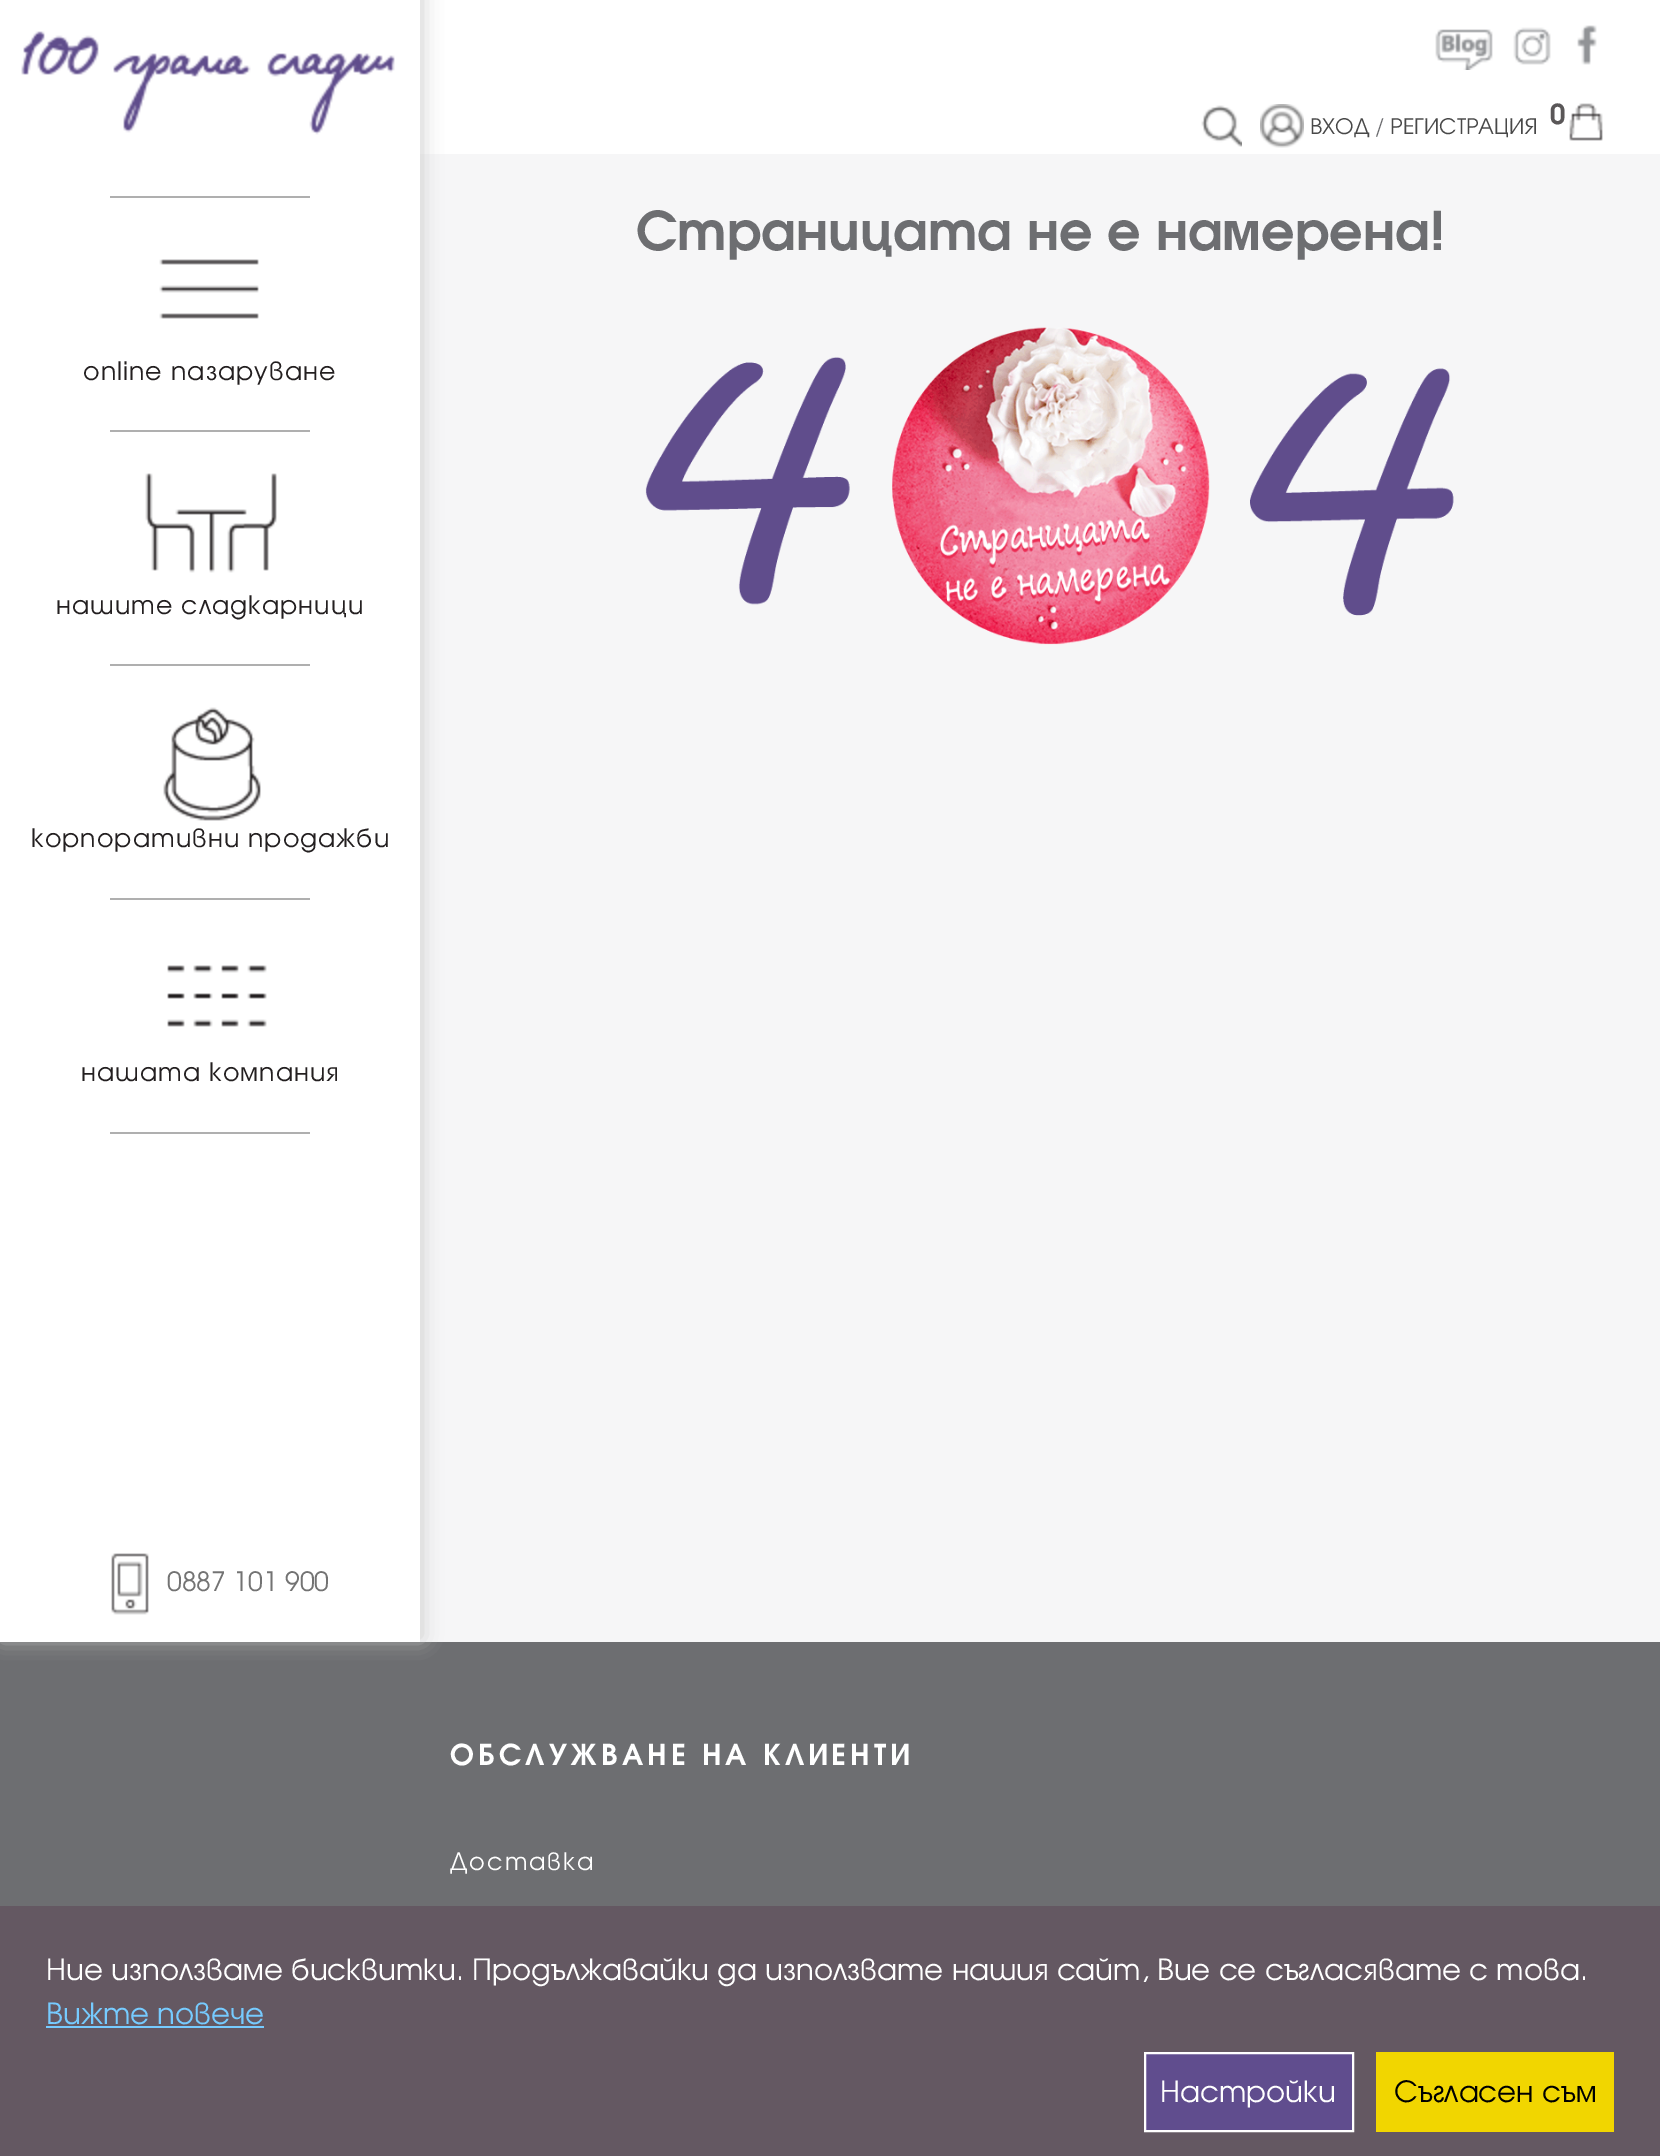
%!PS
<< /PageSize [1660 2156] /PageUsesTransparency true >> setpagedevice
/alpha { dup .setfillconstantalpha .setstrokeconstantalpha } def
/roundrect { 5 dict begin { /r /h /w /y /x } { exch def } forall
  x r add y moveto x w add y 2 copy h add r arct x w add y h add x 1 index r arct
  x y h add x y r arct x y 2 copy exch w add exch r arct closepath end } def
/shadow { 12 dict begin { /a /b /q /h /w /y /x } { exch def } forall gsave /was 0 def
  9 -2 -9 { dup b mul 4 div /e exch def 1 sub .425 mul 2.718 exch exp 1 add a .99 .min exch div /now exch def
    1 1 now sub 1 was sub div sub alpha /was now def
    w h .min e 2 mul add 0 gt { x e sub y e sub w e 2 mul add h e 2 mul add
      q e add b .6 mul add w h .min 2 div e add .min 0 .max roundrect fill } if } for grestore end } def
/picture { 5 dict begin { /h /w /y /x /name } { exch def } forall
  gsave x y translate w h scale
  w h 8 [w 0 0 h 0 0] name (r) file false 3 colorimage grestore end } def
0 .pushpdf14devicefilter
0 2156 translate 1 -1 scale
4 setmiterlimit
1 setgray
0 0 1660 2156 rectfill
(img1.rgb) 1435 29 58 41 picture
(img2.rgb) 1513 27 38 38 picture
(img3.rgb) 1577 25 20 40 picture
(img4.rgb) 1201 105 41 42 picture
(img5.rgb) 1260 104 44 44 picture
/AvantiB-Regular [22.5 0 0 -22.5 0 0] selectfont
0.282 setgray
1310 134 moveto (ВХОД) show
0.427 0.431 0.443 setrgbcolor
1375 134 moveto (/) show
0.282 setgray
1390 134 moveto (РЕГИСТРАЦИЯ) show
/AvantiB-Bold [29 0 0 -29 0 0] selectfont
0.353 0.341 0.345 setrgbcolor
1550 124 moveto (0) show
(img6.rgb) 1569 103 34 38 picture
0.965 0.965 0.969 setrgbcolor
420 154 1240 1488 rectfill
/AvantiB-Bold [56 0 0 -56 0 0] selectfont
0.427 0.431 0.443 setrgbcolor
636 250 moveto (Страницата не е намерена!) show
(img7.rgb) 645 327 809 318 picture
0 1642 1660 264 rectfill
gsave
newpath 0 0 moveto 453 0 lineto 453 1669 lineto 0 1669 lineto closepath 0 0 moveto 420 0 lineto 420 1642 lineto 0 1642 lineto closepath eoclip newpath
0.8 setgray
2 -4 420 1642 0 10 1 shadow
grestore
(img8.rgb) 21 31 374 104 picture
0.686 setgray
110 196 200 2 rectfill
(img9.rgb) 159 259 100 60 picture
/AvantiB-Regular [26.6 0 0 -26.6 0 0] selectfont
0.137 0.122 0.125 setrgbcolor
83 380 moveto 1 0 (online пазаруване) ashow
0.686 setgray
110 430 200 2 rectfill
(img10.rgb) 145 473 132 100 picture
0.137 0.122 0.125 setrgbcolor
56 614 moveto 1 0 (нашите сладкарници) ashow
0.686 setgray
110 664 200 2 rectfill
(img11.rgb) 163 707 98 114 picture
0.137 0.122 0.125 setrgbcolor
31 847 moveto 1 0 (корпоративни продажби) ashow
0.686 setgray
110 898 200 2 rectfill
(img12.rgb) 167 965 100 62 picture
0.137 0.122 0.125 setrgbcolor
81 1081 moveto 1 0 (нашата компания) ashow
0.686 setgray
110 1132 200 2 rectfill
(img13.rgb) 111 1553 38 62 picture
/AvantiB-Regular [28 0 0 -28 0 0] selectfont
0.451 setgray
167 1591 moveto (0887 101 900) show
/AvantiB-Bold [30.25 0 0 -30.25 0 0] selectfont
1 setgray
450 1765 moveto 4 0 (ОБСЛУЖВАНЕ НА КЛИЕНТИ) ashow
/AvantiB-Regular [25.25 0 0 -25.25 0 0] selectfont
450 1870 moveto 2 0 (Доставка) ashow
0.392 0.345 0.384 setrgbcolor
0 1906 1660 250 rectfill
/AvantiB-Regular [30.8 0 0 -30.8 0 0] selectfont
1 setgray
46 1980 moveto (Ние използваме бисквитки. Продължавайки да използвате нашия сайт, Вие се съгласявате с това.) show
0.463 0.796 1 setrgbcolor
46 2024 moveto (Вижте повече) show
46 2026 218 2 rectfill
0.376 0.302 0.557 setrgbcolor
newpath 1145 2053 moveto 1353 2053 lineto 1353 2131 lineto 1145 2131 lineto closepath gsave fill grestore
1 setgray
2 setlinewidth
stroke
1160 2102 moveto (Настройки) show
0.945 0.839 0 setrgbcolor
1376 2052 238 80 rectfill
0 setgray
1394 2102 moveto (Съгласен съм) show
.poppdf14devicefilter showpage
